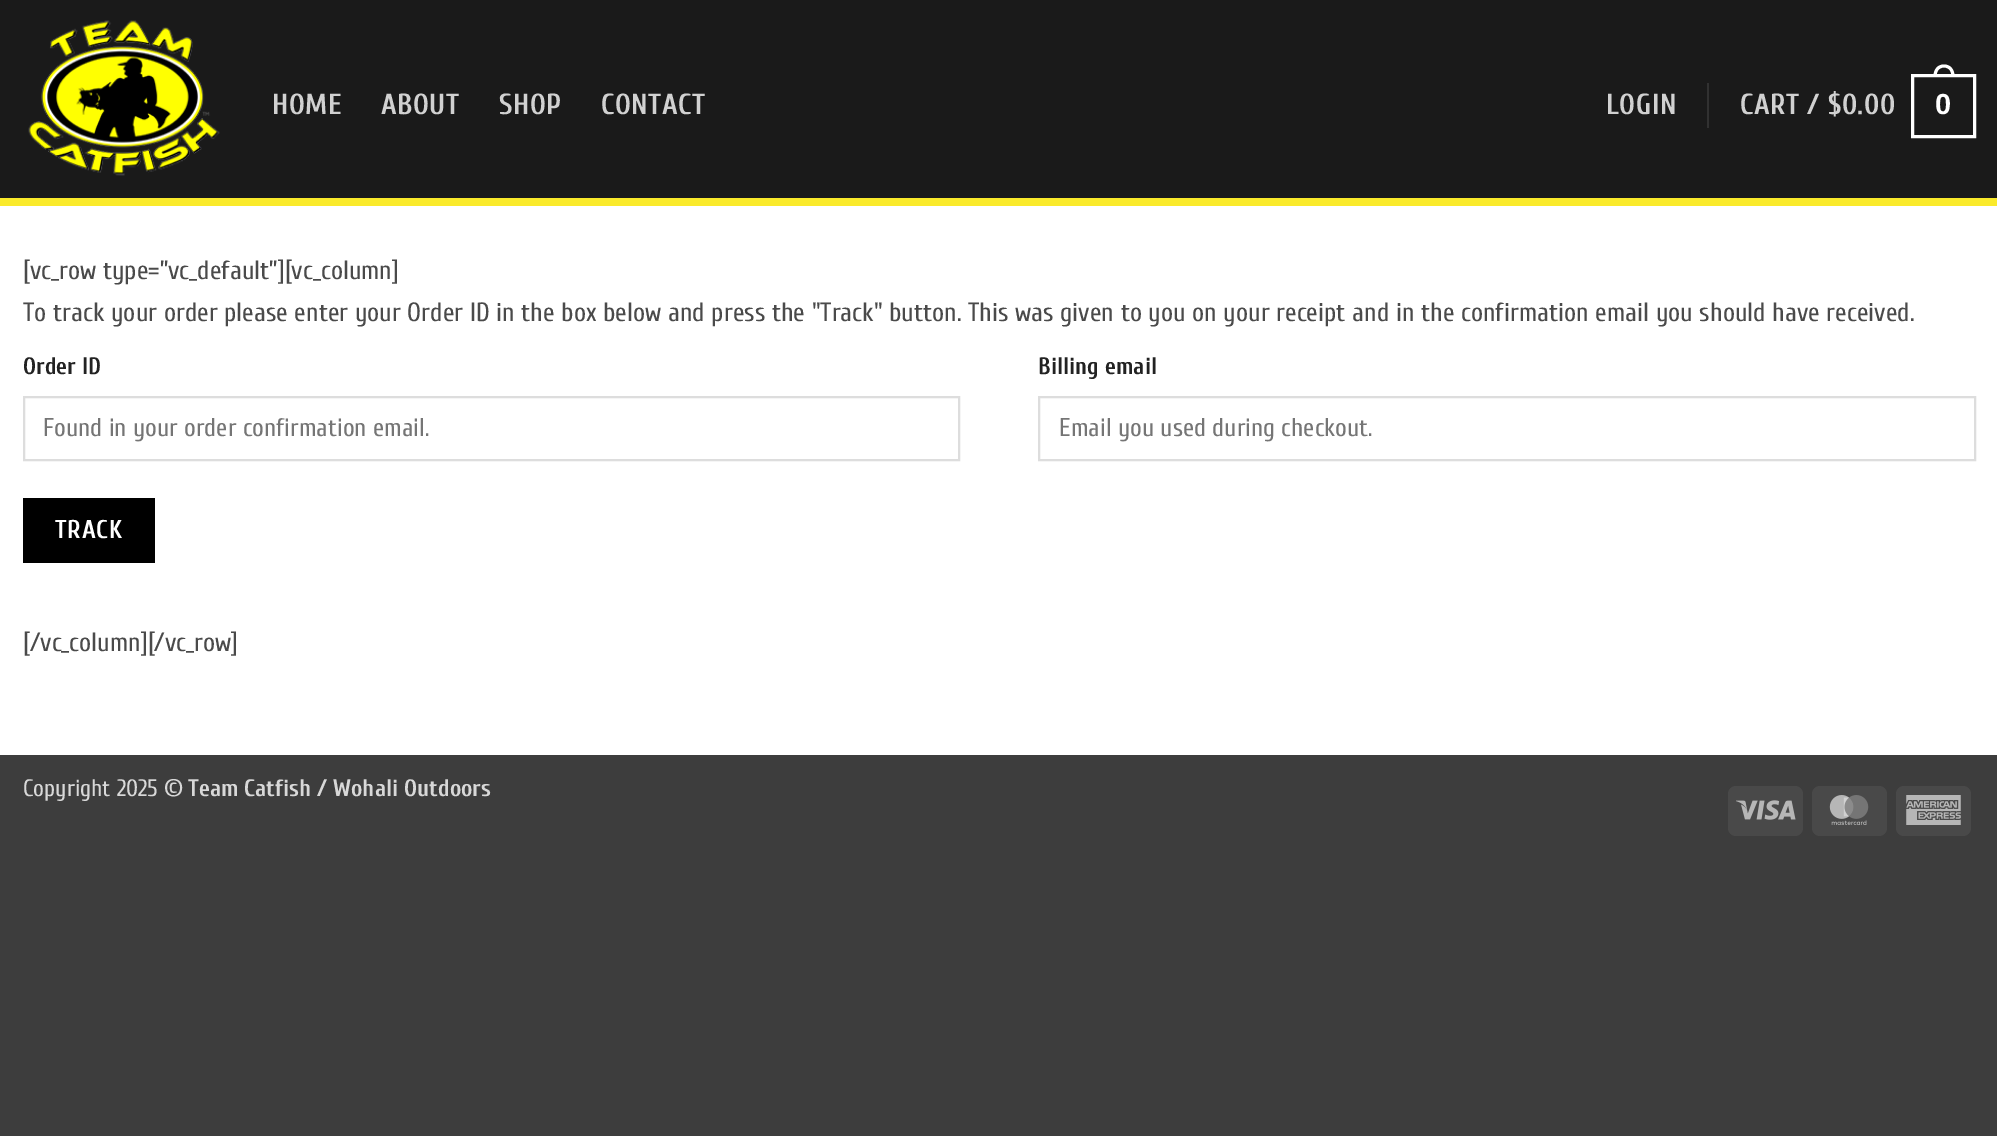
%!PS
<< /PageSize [1997 1136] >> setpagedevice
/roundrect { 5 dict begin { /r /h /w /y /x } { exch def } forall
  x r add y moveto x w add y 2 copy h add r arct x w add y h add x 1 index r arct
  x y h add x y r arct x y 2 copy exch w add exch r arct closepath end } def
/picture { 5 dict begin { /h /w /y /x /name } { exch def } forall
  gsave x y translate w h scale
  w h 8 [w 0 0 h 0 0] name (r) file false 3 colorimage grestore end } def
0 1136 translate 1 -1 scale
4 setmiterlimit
0.239 setgray
0 0 1997 1136 rectfill
1 setgray
0 206 1997 549 rectfill
0.98 0.918 0.169 setrgbcolor
0 198 1997 8 rectfill
0.102 setgray
0 0 1997 198 rectfill
(img1.rgb) 28 20 192 156 picture
/Cuprum-Bold [29 0 0 -29 0 0] selectfont
0.82 setgray
272 114 moveto 0.5 0 (HOME) ashow
381 114 moveto 0.5 0 (ABOUT) ashow
499 114 moveto 0.5 0 (SHOP) ashow
601 114 moveto 0.5 0 (CONTACT) ashow
1606 114 moveto 0.5 0 (LOGIN) ashow
0.192 setgray
1707 83 2 45 rectfill
0.82 setgray
1740 114 moveto 0.5 0 (CART / $0.00) ashow
1 setgray
3 setlinewidth
1912.5 75.5 62 61 rectstroke
newpath 1944 64.5 moveto 1951 64.5 1954.5 70 1954.5 76.5 curveto 1933.5 76.5 lineto 1933.5 70 1937 64.5 1944 64.5 curveto closepath 1944 67.5 moveto 1949.5 67.5 1951.5 72 1951.5 76.5 curveto 1936.5 76.5 lineto 1936.5 72 1938.5 67.5 1944 67.5 curveto closepath eofill
/LiberationSans-Bold [29 0 0 -29 0 0] selectfont
1935 114 moveto 0.5 0 (0) ashow
/Cuprum-Regular [26.4 0 0 -26.4 0 0] selectfont
0.29 setgray
23 279 moveto ([vc_row type=”vc_default”][vc_column]) show
23 321 moveto (To track your order please enter your Order ID in the box below and press the "Track" button. This was given to you on your receipt and in the confirmation email you should have received.) show
/Cuprum-Bold [23.75 0 0 -23.75 0 0] selectfont
0.133 setgray
23 374 moveto (Order ID) show
0.867 setgray
2 setlinewidth
24 397 935 63 rectstroke
/Cuprum-Regular [25.6 0 0 -25.6 0 0] selectfont
0.459 setgray
43 436 moveto (Found in your order confirmation email.) show
/Cuprum-Bold [23.75 0 0 -23.75 0 0] selectfont
0.133 setgray
1038 374 moveto (Billing email) show
0.867 setgray
1039 397 936 63 rectstroke
/Cuprum-Regular [25.6 0 0 -25.6 0 0] selectfont
0.459 setgray
1059 436 moveto (Email you used during checkout.) show
0 setgray
23 498 132 65 rectfill
/Cuprum-Bold [25.6 0 0 -25.6 0 0] selectfont
1 setgray
55 538 moveto 0.75 0 (TRACK) ashow
/Cuprum-Regular [26.4 0 0 -26.4 0 0] selectfont
0.29 setgray
23 651 moveto ([/vc_column][/vc_row]) show
/Cuprum-Regular [23.75 0 0 -23.75 0 0] selectfont
0.847 setgray
23 796 moveto (Copyright 2025 ©) show
/Cuprum-Bold [23.75 0 0 -23.75 0 0] selectfont
188 796 moveto (Team Catfish / Wohali Outdoors) show
0.286 setgray
1728 786 75 50 8 roundrect fill
(img2.rgb) 1736 800 60 20 picture
1812 786 75 50 8 roundrect fill
(img3.rgb) 1829 795 40 30 picture
1896 786 75 50 8 roundrect fill
(img4.rgb) 1906 795 55 30 picture
showpage
